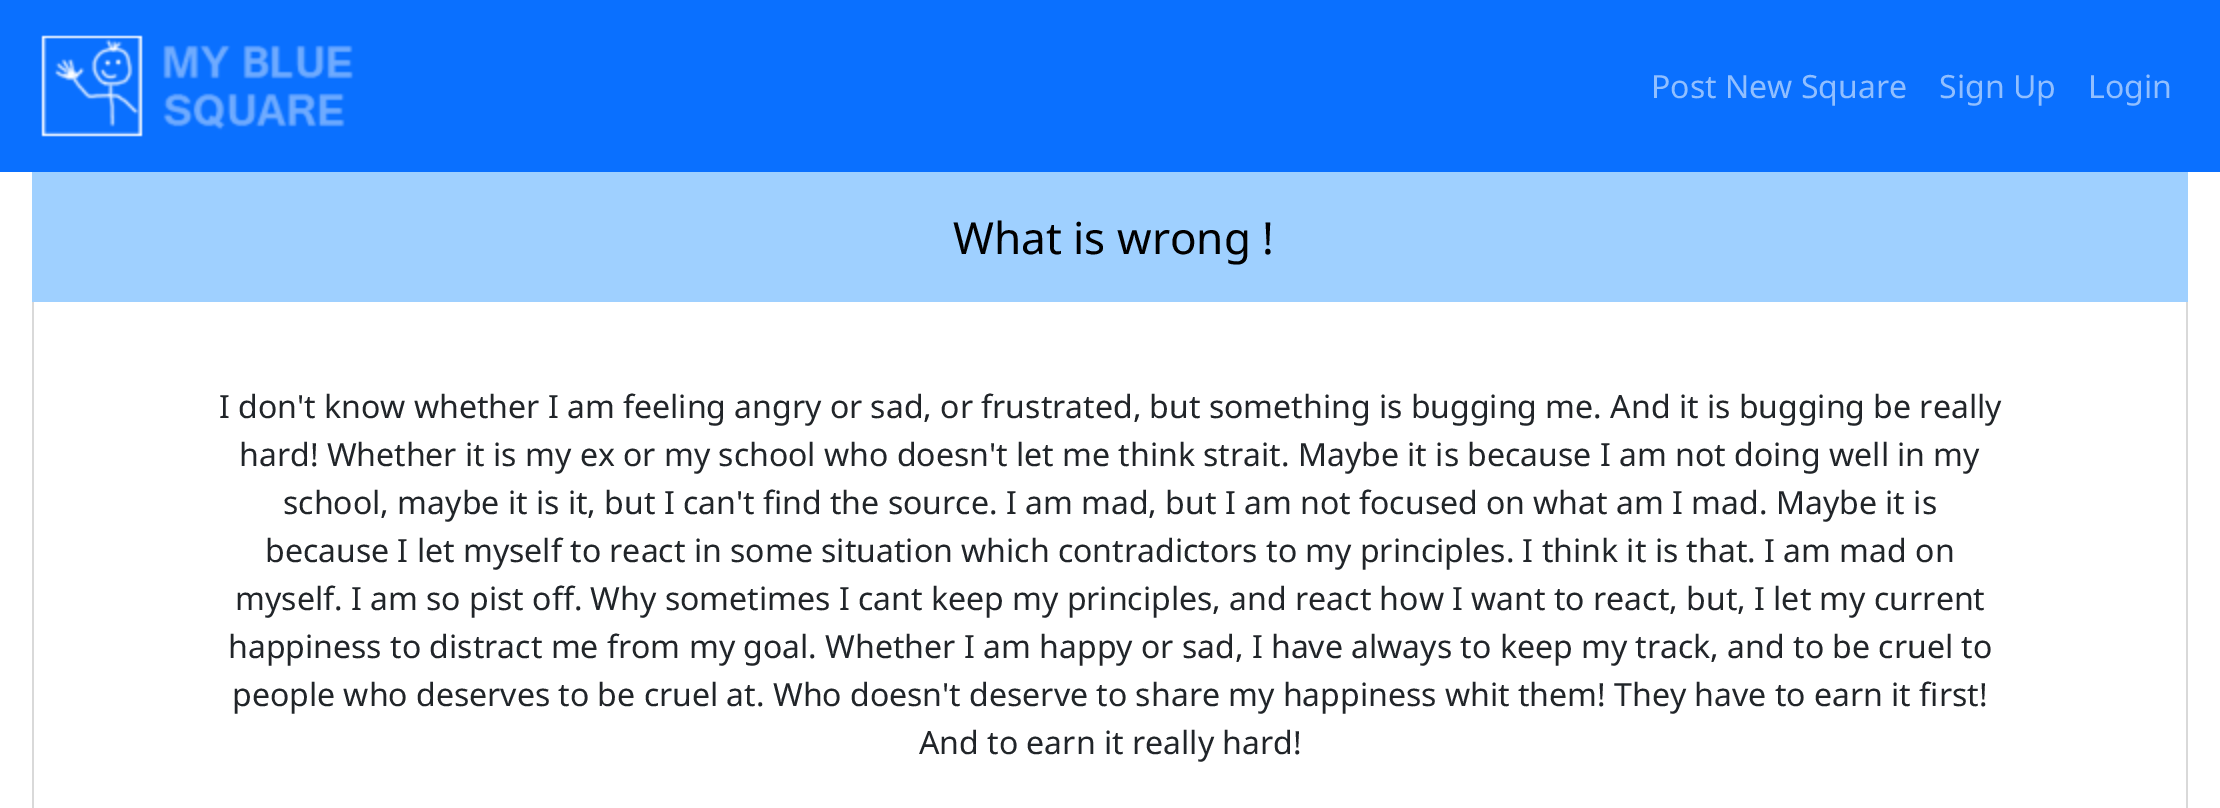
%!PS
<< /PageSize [2220 808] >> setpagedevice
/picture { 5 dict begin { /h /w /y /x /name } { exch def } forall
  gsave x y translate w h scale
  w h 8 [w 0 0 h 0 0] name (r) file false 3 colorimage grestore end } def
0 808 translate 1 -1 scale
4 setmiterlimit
1 setgray
0 0 2220 808 rectfill
0.039 0.439 1 setrgbcolor
0 0 2220 172 rectfill
(img1.rgb) 41 35 313 102 picture
/NotoSans-Regular [32 0 0 -32 0 0] selectfont
0.569 0.749 1 setrgbcolor
1651 98 moveto (Post New Square) show
1939 98 moveto (Sign Up) show
2088 98 moveto (Login) show
0.624 0.816 1 setrgbcolor
32 172 2156 130 rectfill
/NotoSans-Regular [44 0 0 -44 0 0] selectfont
0 setgray
953 254 moveto (What is wrong !) show
0.851 setgray
2186 302 2 506 rectfill
32 302 2 506 rectfill
/NotoSans-Regular [32 0 0 -32 0 0] selectfont
0.129 0.145 0.161 setrgbcolor
219 418 moveto (I don't know whether I am feeling angry or sad, or frustrated, but something is bugging me. And it is bugging be really) show
239 466 moveto (hard! Whether it is my ex or my school who doesn't let me think strait. Maybe it is because I am not doing well in my) show
283 514 moveto (school, maybe it is it, but I can't find the source. I am mad, but I am not focused on what am I mad. Maybe it is) show
265 562 moveto (because I let myself to react in some situation which contradictors to my principles. I think it is that. I am mad on) show
235 610 moveto (myself. I am so pist off. Why sometimes I cant keep my principles, and react how I want to react, but, I let my current) show
228 658 moveto (happiness to distract me from my goal. Whether I am happy or sad, I have always to keep my track, and to be cruel to) show
232 706 moveto (people who deserves to be cruel at. Who doesn't deserve to share my happiness whit them! They have to earn it first!) show
919 754 moveto (And to earn it really hard!) show
showpage
